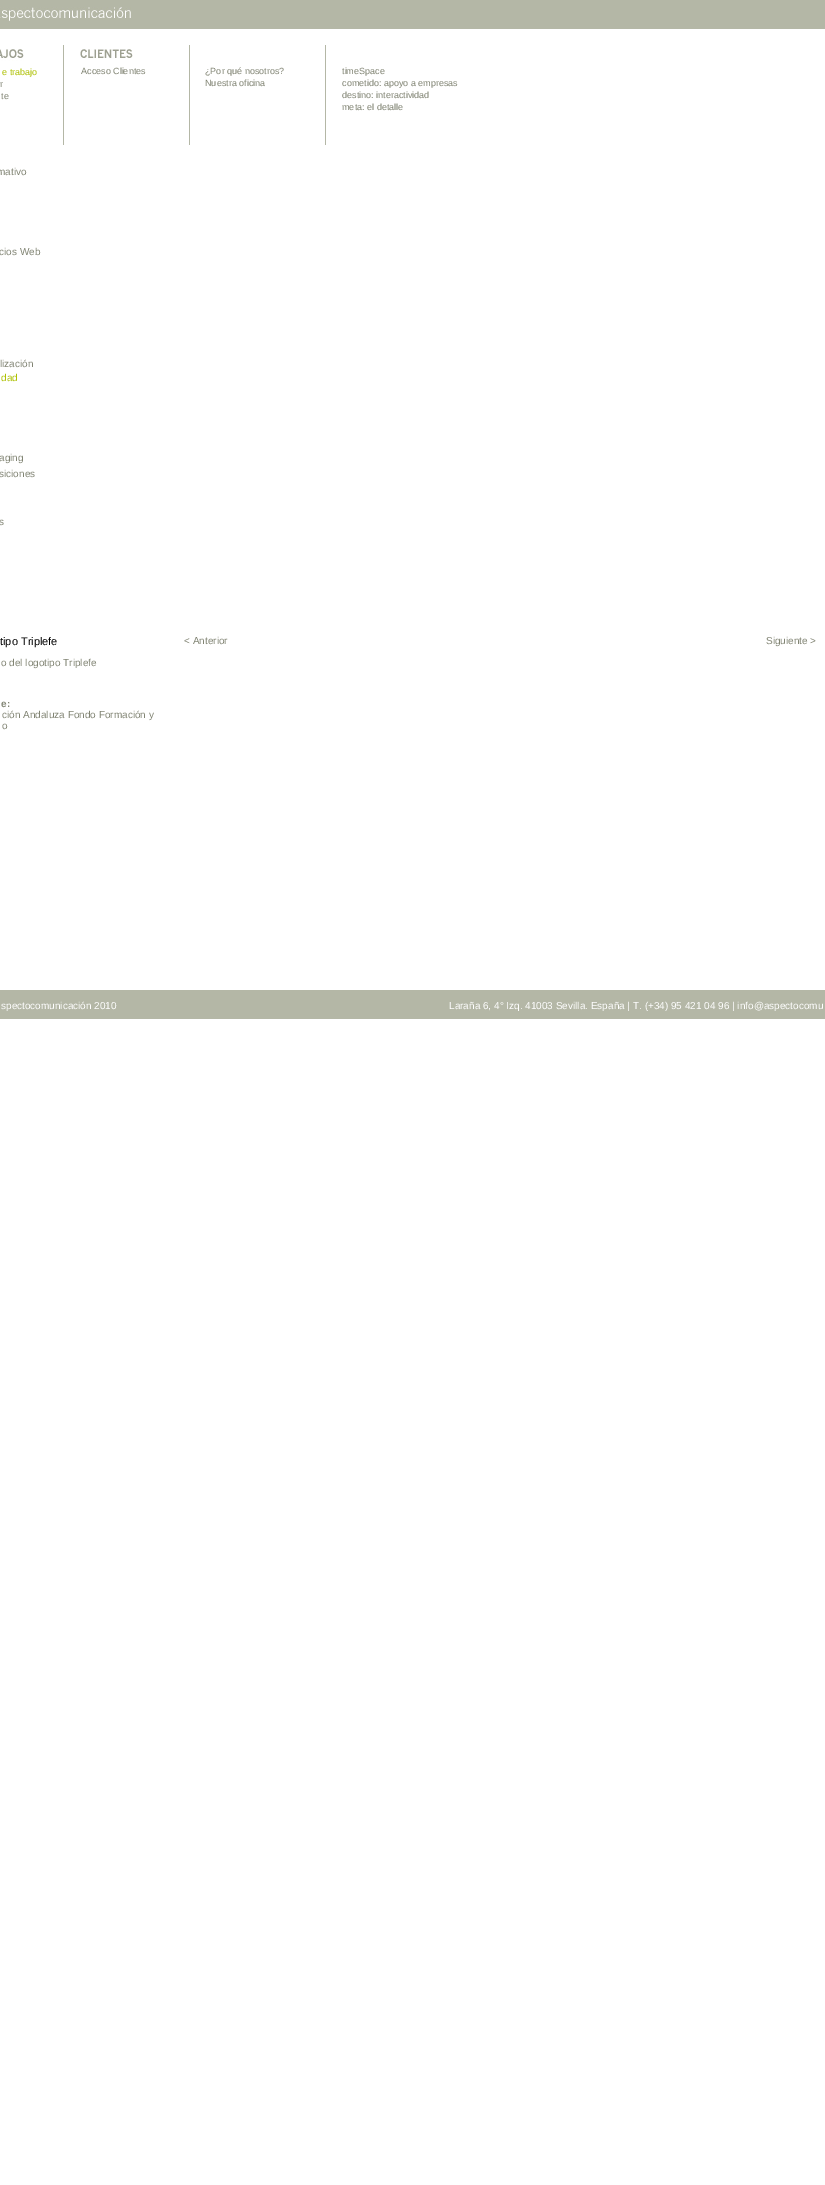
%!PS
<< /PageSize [825 2185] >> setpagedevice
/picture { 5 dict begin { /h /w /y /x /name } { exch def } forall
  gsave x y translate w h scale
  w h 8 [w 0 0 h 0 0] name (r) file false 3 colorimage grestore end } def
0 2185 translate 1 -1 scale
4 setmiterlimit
1 setgray
0 0 825 2185 rectfill
0.706 0.718 0.651 setrgbcolor
0 0 825 29 rectfill
(img1.rgb) 0 7 131 14 picture
(img2.rgb) 0 49 24 12 picture
/LiberationSans-Regular [9 0 0 -9 0 0] selectfont
0.682 0.757 0.012 setrgbcolor
2 75 moveto (e trabajo) show
0.506 0.518 0.451 setrgbcolor
0 87 moveto (r) show
1 99 moveto (te) show
0.706 0.718 0.651 setrgbcolor
63 45 1 100 rectfill
(img3.rgb) 80 49 53 10 picture
0.506 0.518 0.451 setrgbcolor
81 74 moveto (Acceso Clientes) show
0.706 0.718 0.651 setrgbcolor
189 45 1 100 rectfill
0.506 0.518 0.451 setrgbcolor
205 74 moveto (¿Por qué nosotros?) show
205 86 moveto (Nuestra oficina) show
0.706 0.718 0.651 setrgbcolor
325 45 1 100 rectfill
0.506 0.518 0.451 setrgbcolor
342 74 moveto (timeSpace) show
342 86 moveto (cometido: apoyo a empresas) show
342 98 moveto (destino: interactividad) show
342 110 moveto (meta: el detalle) show
/LiberationSans-Regular [10 0 0 -10 0 0] selectfont
-3 175 moveto (mativo) show
-1 255 moveto (cios Web) show
0 367 moveto (lización) show
0.682 0.757 0.012 setrgbcolor
1 381 moveto (dad) show
0.506 0.518 0.451 setrgbcolor
-1 461 moveto (aging) show
-1 477 moveto (siciones) show
-1 525 moveto (s) show
/LiberationSans-Regular [11 0 0 -11 0 0] selectfont
0 setgray
0 645 moveto (tipo Triplefe) show
/LiberationSans-Regular [10 0 0 -10 0 0] selectfont
0.506 0.518 0.451 setrgbcolor
1 666 moveto (o del logotipo Triplefe) show
/LiberationSans-Bold [10 0 0 -10 0 0] selectfont
1 707 moveto (e:) show
/LiberationSans-Regular [10 0 0 -10 0 0] selectfont
2 718 moveto (ción Andaluza Fondo Formación y) show
2 729 moveto (o) show
184 644 moveto (< Anterior) show
766 644 moveto (Siguiente >) show
0.706 0.718 0.651 setrgbcolor
0 990 825 29 rectfill
1 setgray
1 1009 moveto (spectocomunicación 2010) show
449 1009 moveto (Laraña 6, 4° Izq. 41003 Sevilla. España | T. \(+34\) 95 421 04 96 | info@aspectocomu) show
showpage
